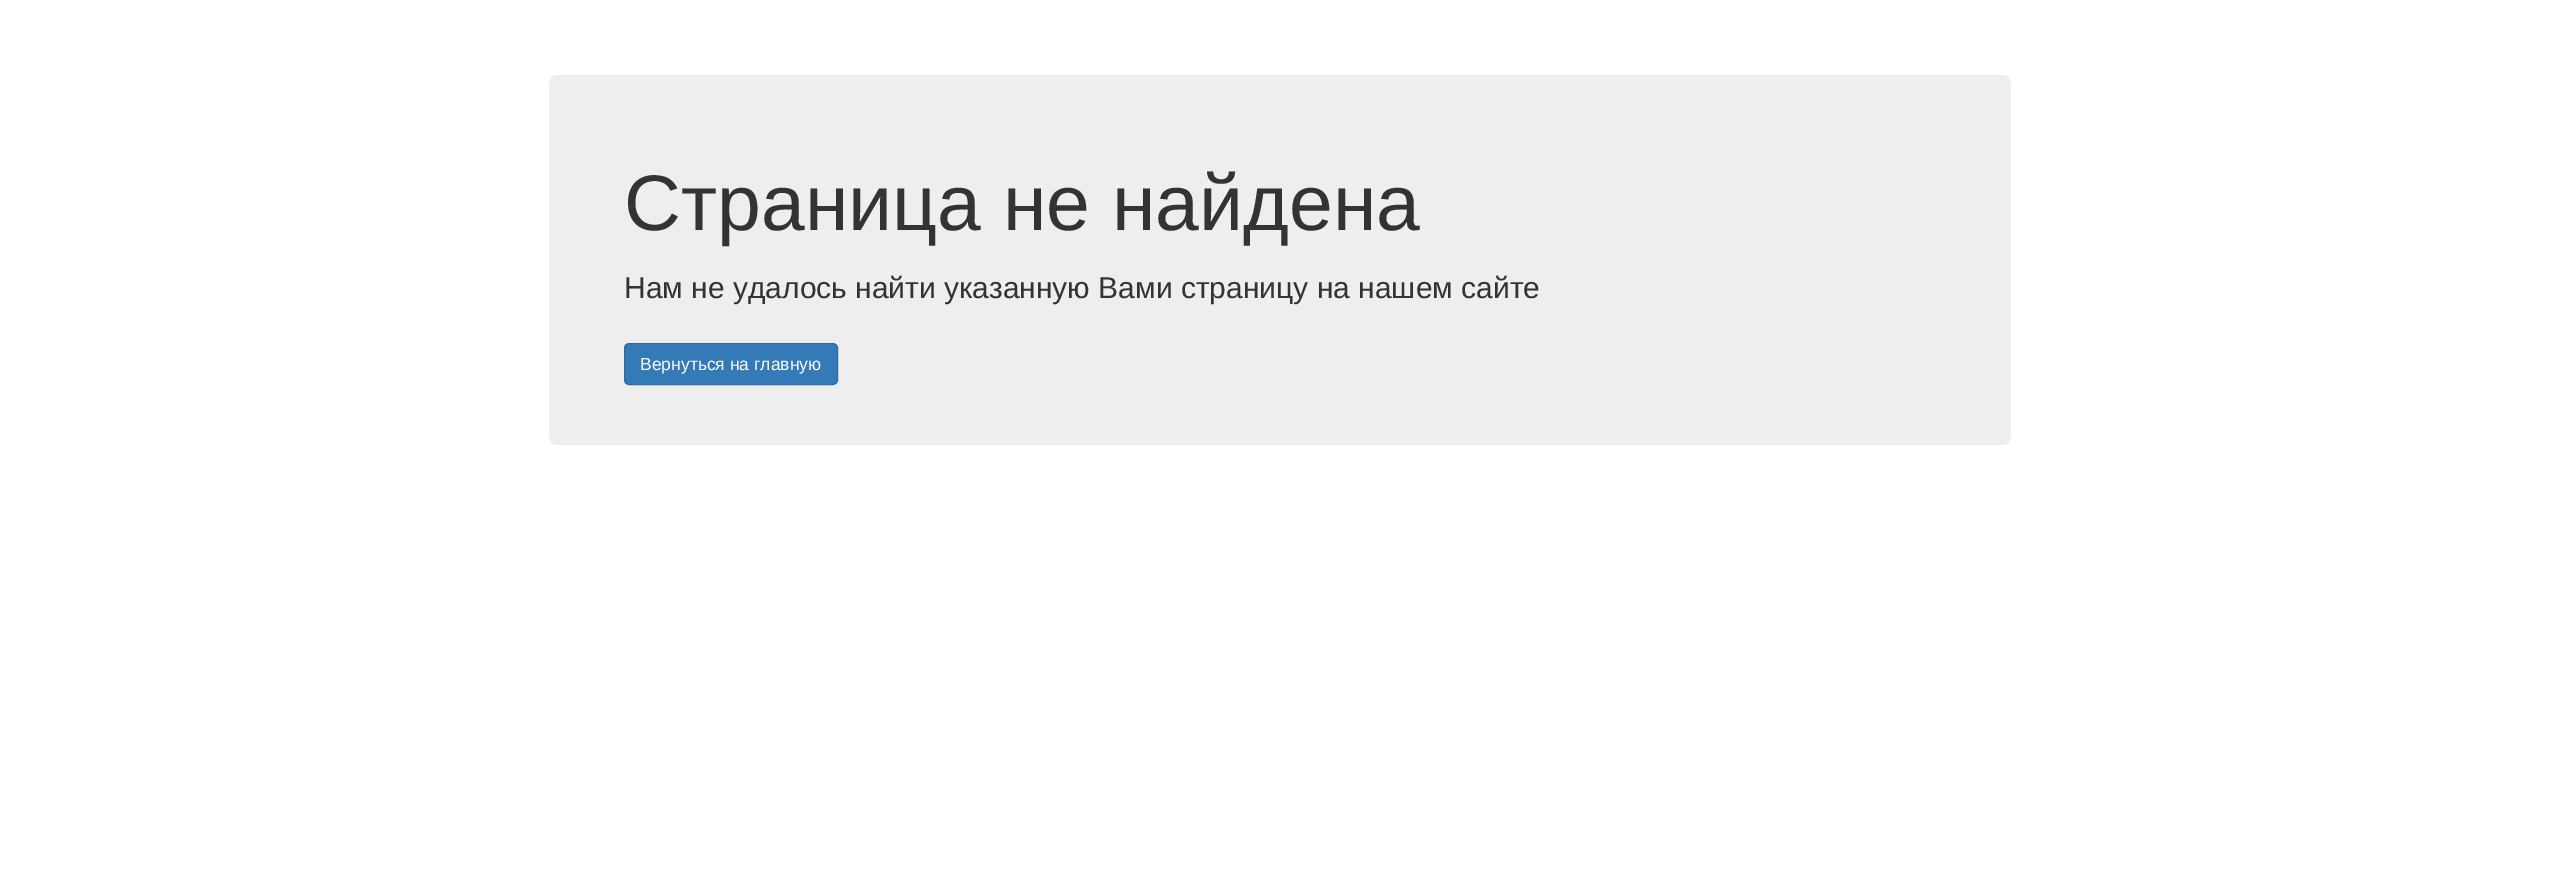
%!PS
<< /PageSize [2559 877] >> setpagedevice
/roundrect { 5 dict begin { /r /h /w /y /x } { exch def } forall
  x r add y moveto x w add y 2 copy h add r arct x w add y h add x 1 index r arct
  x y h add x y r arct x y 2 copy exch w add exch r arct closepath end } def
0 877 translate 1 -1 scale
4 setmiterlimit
1 setgray
0 0 2559 877 rectfill
0.933 setgray
549 75 1462 370 8 roundrect fill
/LiberationSans-Regular [78.75 0 0 -78.75 0 0] selectfont
0.2 setgray
624 230 moveto (Страница не найдена) show
/LiberationSans-Regular [30 0 0 -30 0 0] selectfont
624 298 moveto (Нам не удалось найти указанную Вами страницу на нашем сайте) show
0.2 0.478 0.718 setrgbcolor
624.5 343.5 213 41 4.5 roundrect gsave fill grestore
0.18 0.427 0.643 setrgbcolor
stroke
/LiberationSans-Regular [17.5 0 0 -17.5 0 0] selectfont
1 setgray
640 370 moveto (Вернуться на главную) show
showpage
